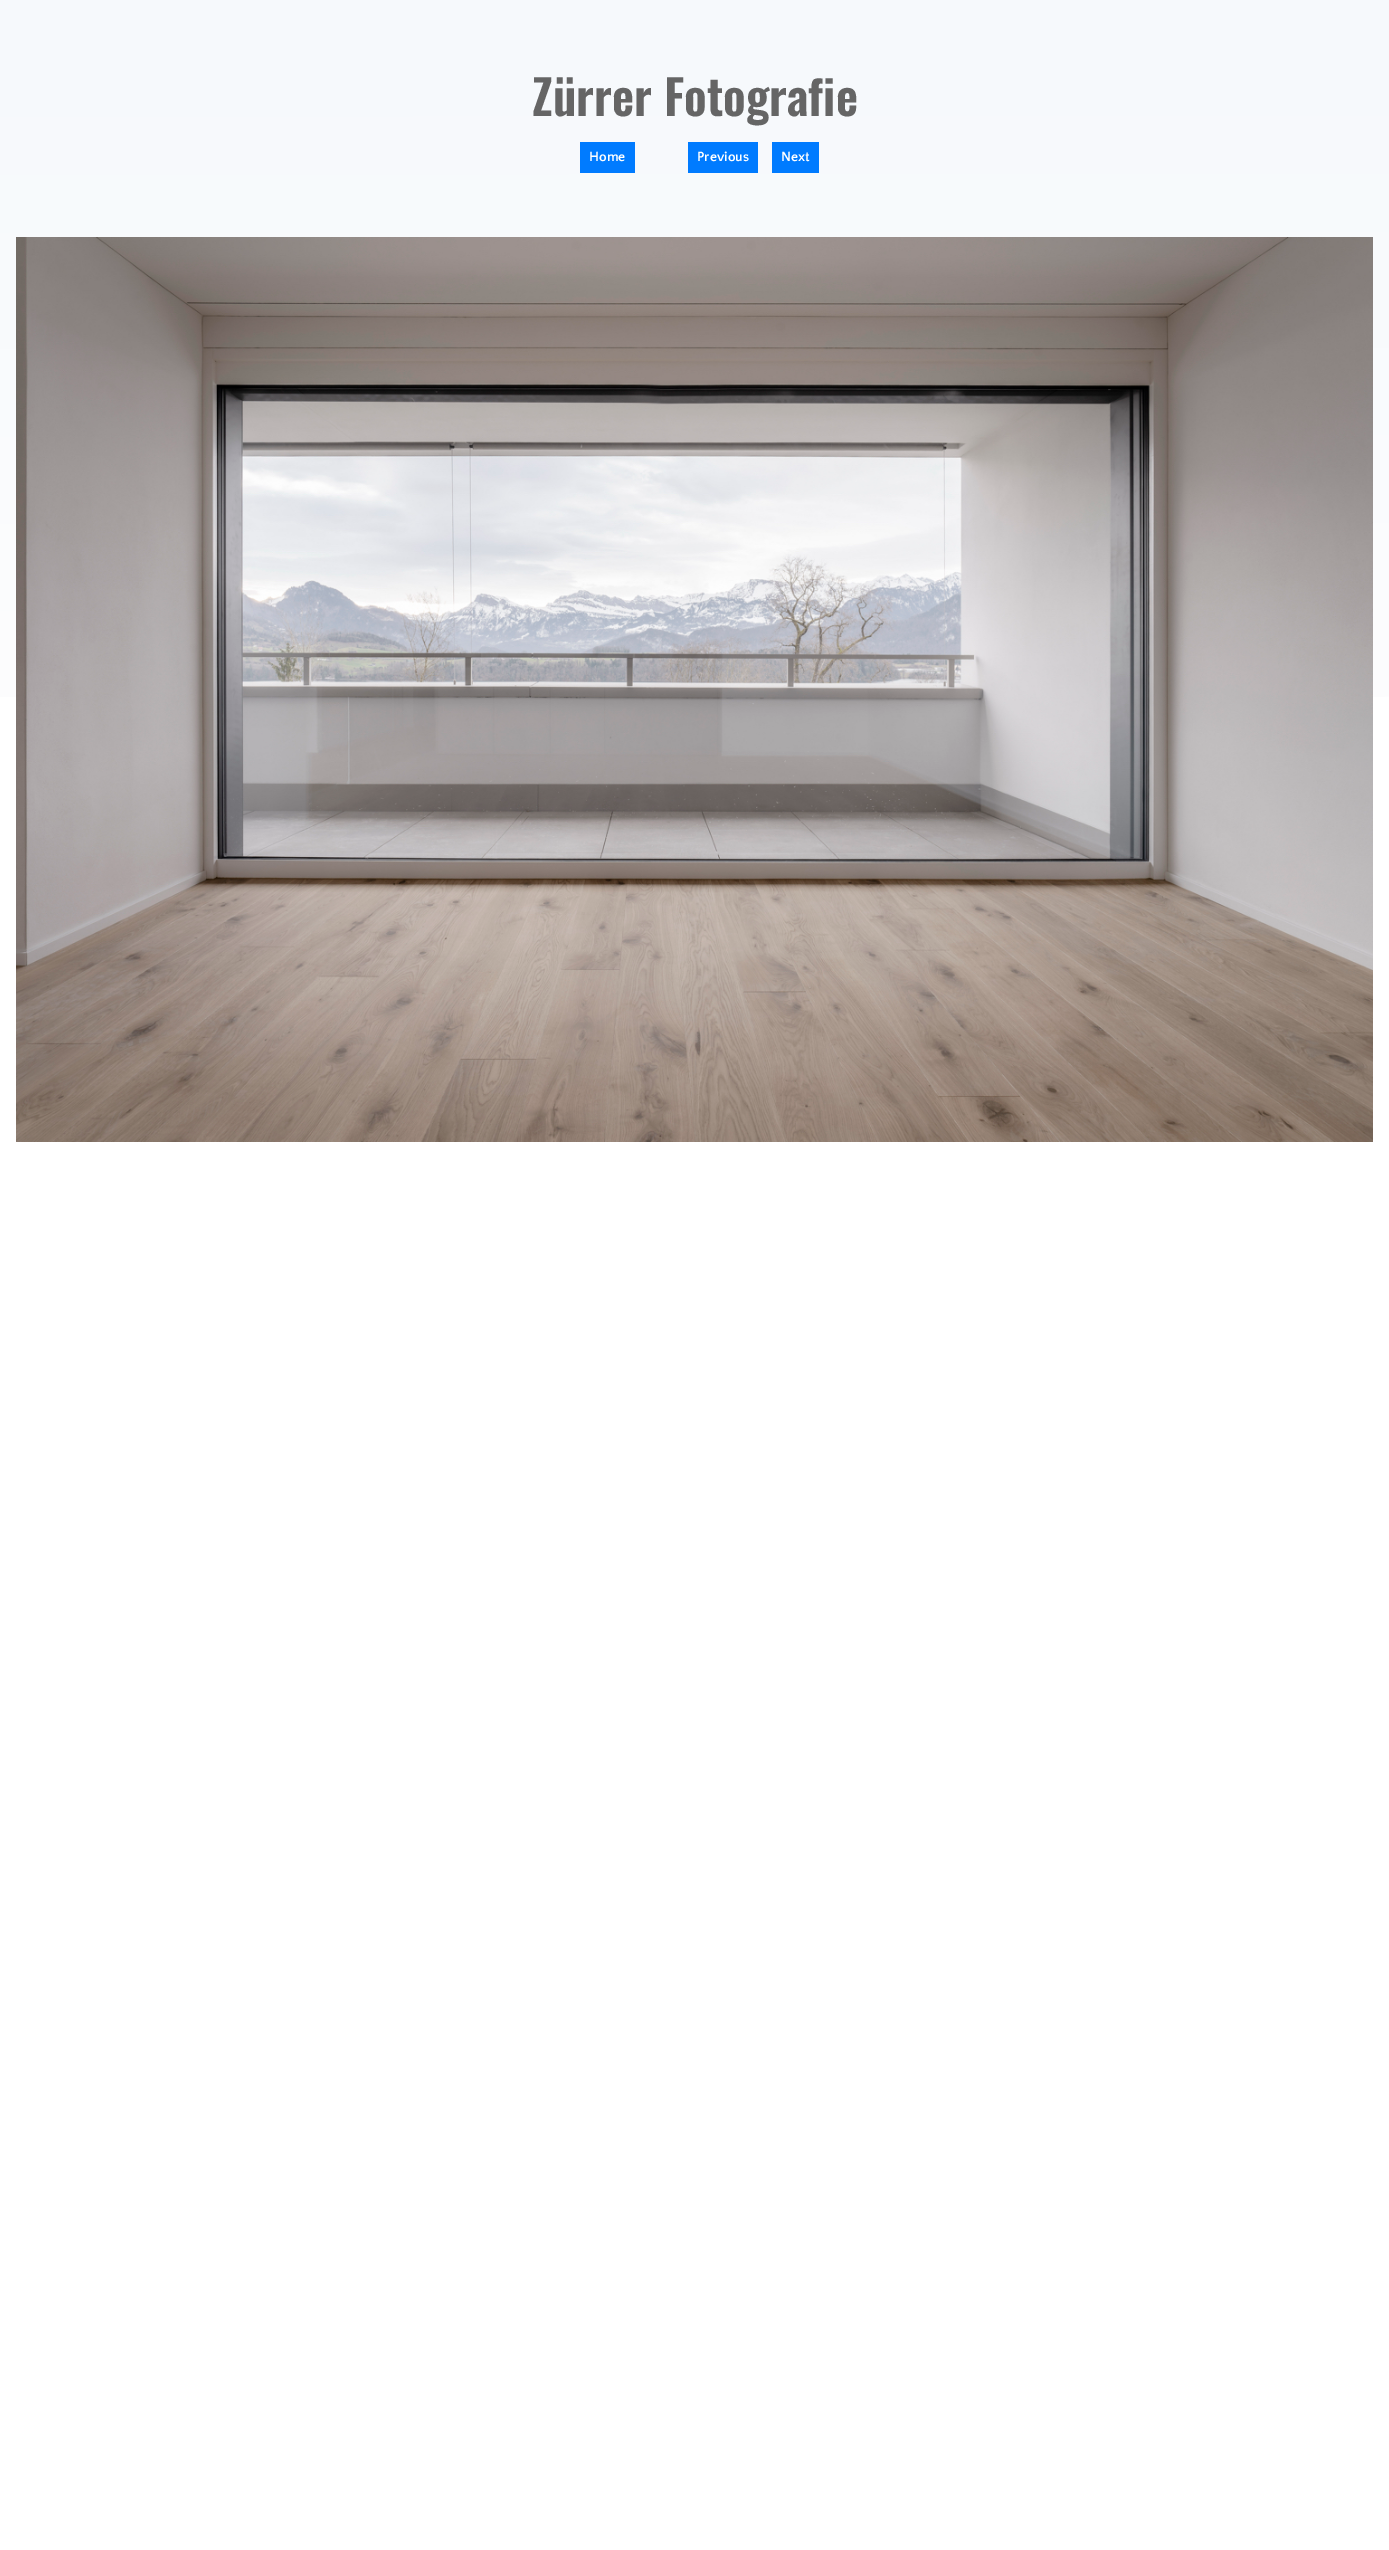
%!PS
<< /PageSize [1389 2550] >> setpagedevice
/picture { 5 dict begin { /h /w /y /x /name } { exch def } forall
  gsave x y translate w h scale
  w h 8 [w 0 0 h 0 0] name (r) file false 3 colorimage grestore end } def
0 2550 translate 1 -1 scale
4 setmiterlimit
1 setgray
0 0 1389 2550 rectfill
gsave newpath 0 0 moveto 1389 0 lineto 1389 697 lineto 0 697 lineto closepath clip newpath
<< /ShadingType 2 /ColorSpace /DeviceRGB /Coords [694 0 695 1206] /Extend [true true] /Function << /FunctionType 3 /Domain [0 1] /Functions [<< /FunctionType 2 /Domain [0 1] /C0 [0.965 0.976 0.988] /C1 [1 1 1] /N 1 >> << /FunctionType 2 /Domain [0 1] /C0 [1 1 1] /C1 [1 1 1] /N 1 >>] /Bounds [0.8] /Encode [0 1 0 1] >> >> shfill grestore
/Oswald-SemiBold [48 0 0 -48 0 0] selectfont
0.396 setgray
532 116 moveto (Zürrer Fotografie) show
0 0.482 1 setrgbcolor
580 142 55 31 rectfill
/QuattrocentoSans-Bold [14 0 0 -14 0 0] selectfont
1 setgray
589 161 moveto (Home) show
0 0.482 1 setrgbcolor
688 142 70 31 rectfill
1 setgray
697 161 moveto (Previous) show
0 0.482 1 setrgbcolor
772 142 47 31 rectfill
1 setgray
781 161 moveto (Next) show
(img1.rgb) 16 237 1357 905 picture
showpage
